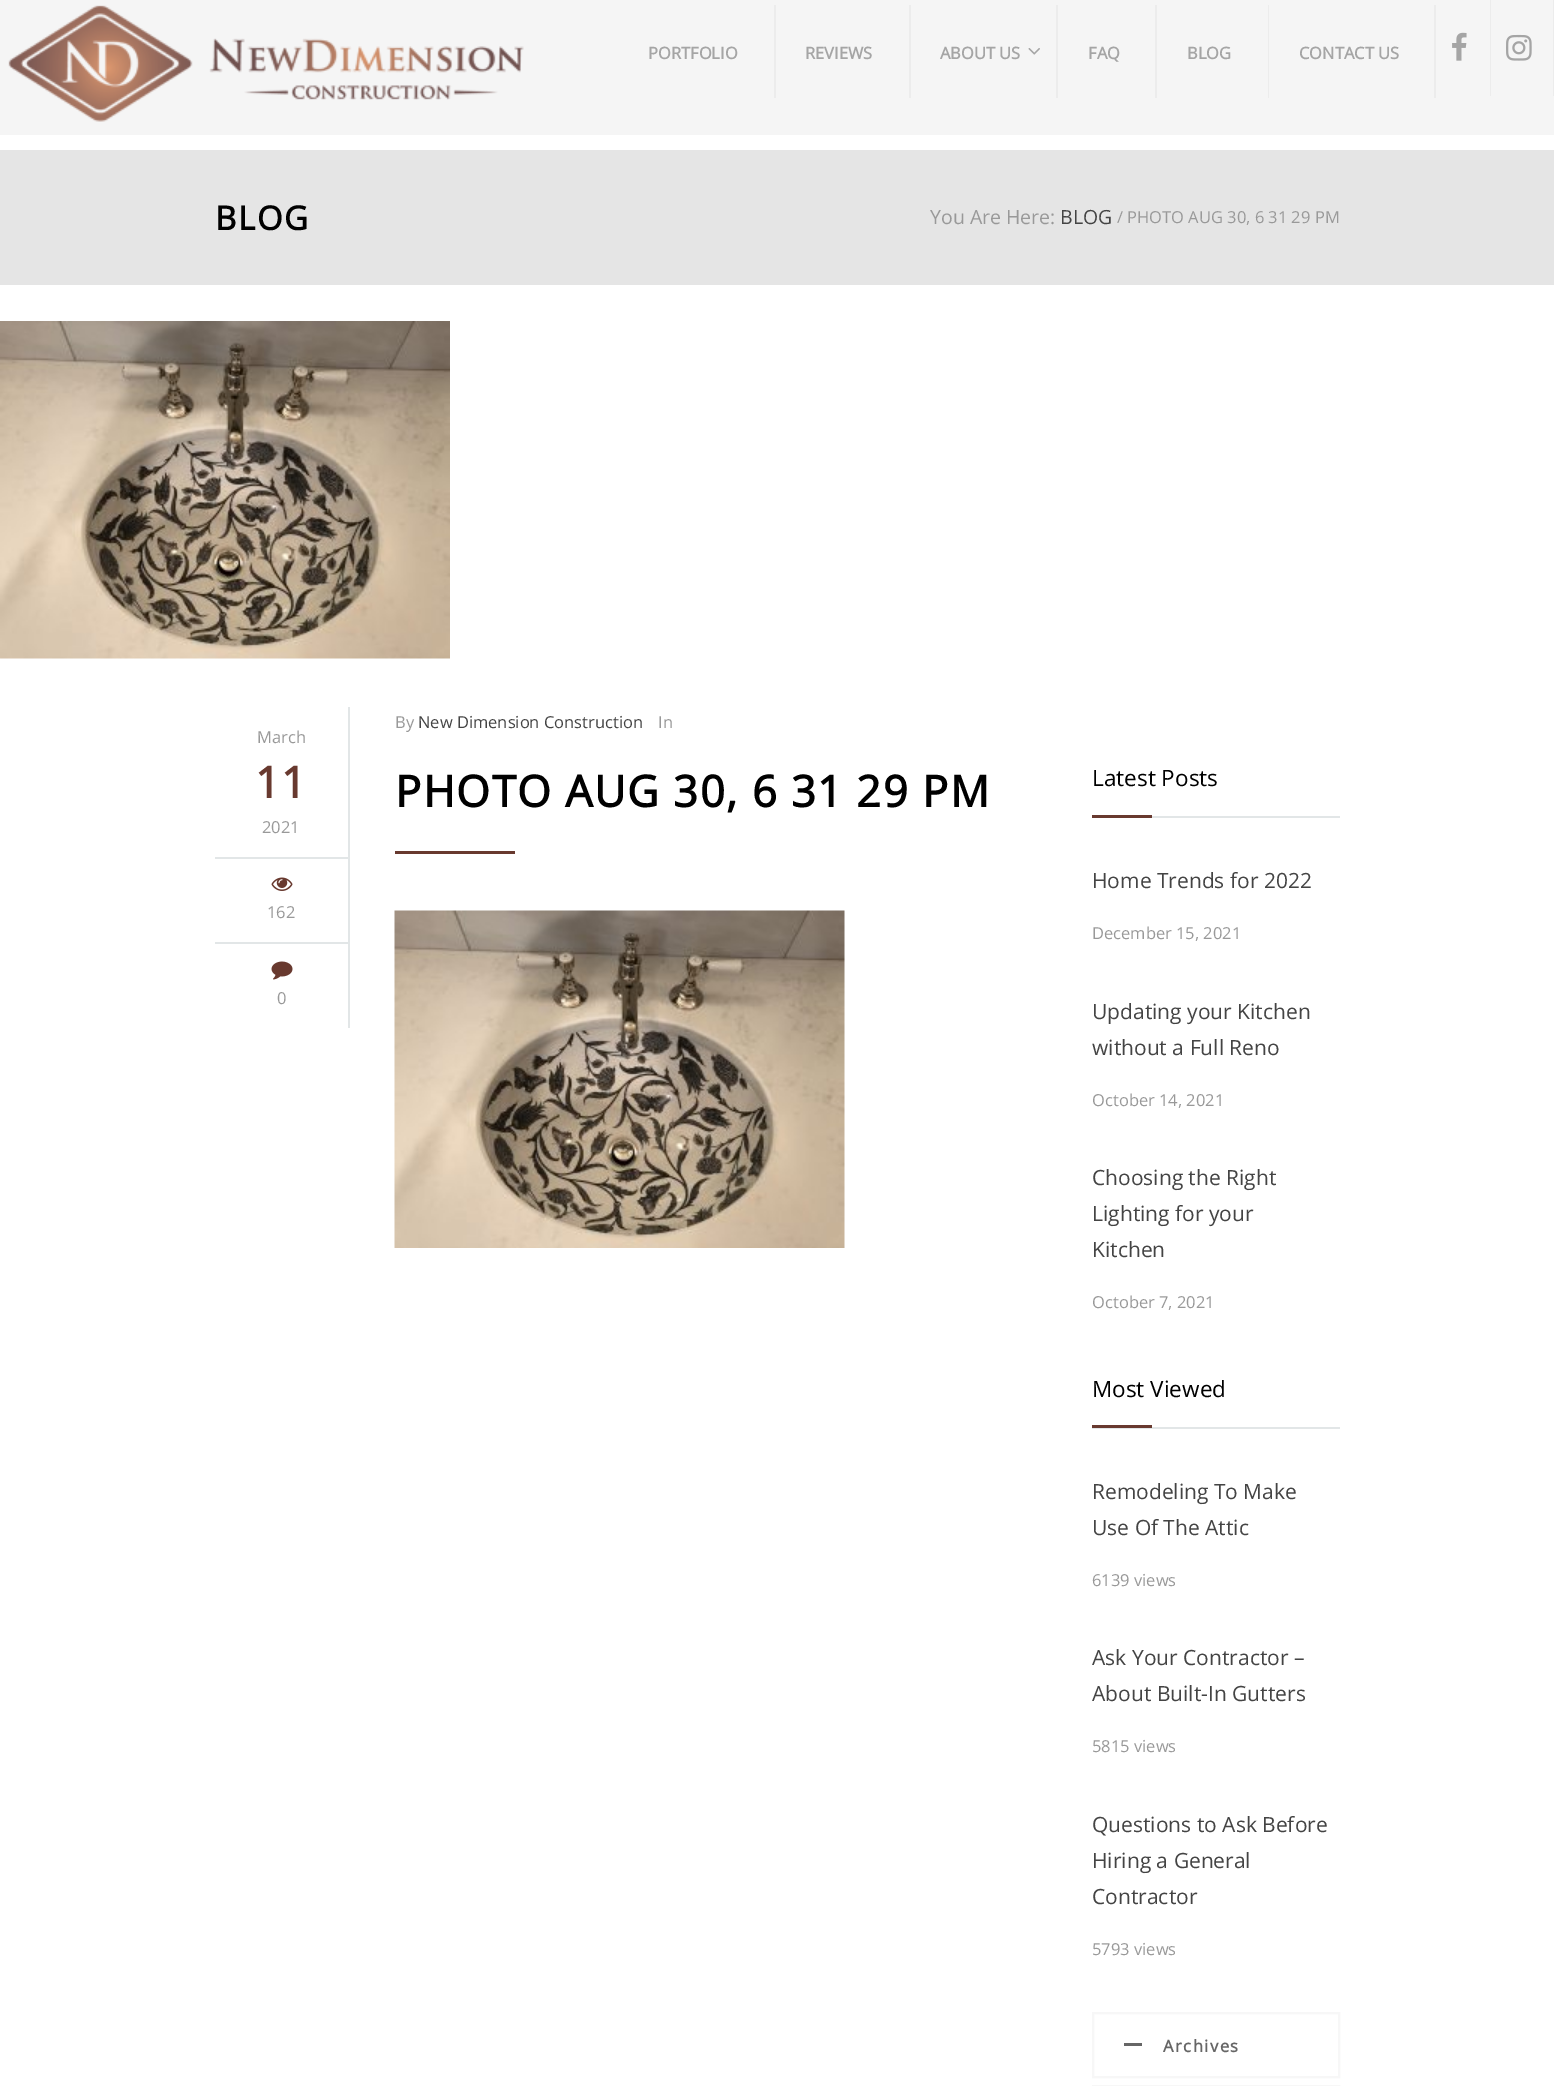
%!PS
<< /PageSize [1554 2086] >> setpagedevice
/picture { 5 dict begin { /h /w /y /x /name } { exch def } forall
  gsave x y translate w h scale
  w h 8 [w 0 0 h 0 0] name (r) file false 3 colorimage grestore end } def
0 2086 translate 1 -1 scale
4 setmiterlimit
1 setgray
0 0 1554 2086 rectfill
0.961 setgray
0 0 1554 135 rectfill
(img1.rgb) 8 5 516 117 picture
/OpenSans-Bold [16.5 0 0 -16.5 0 0] selectfont
0.647 setgray
648 59 moveto (PORTFOLIO) show
0.925 setgray
774 5 2 93 rectfill
0.647 setgray
805 59 moveto (REVIEWS) show
0.925 setgray
909 5 2 93 rectfill
0.647 setgray
940 59 moveto (ABOUT US) show
(img2.rgb) 1028 48 12 7 picture
0.925 setgray
1056 5 2 93 rectfill
0.647 setgray
1088 59 moveto (FAQ) show
0.925 setgray
1155 5 2 93 rectfill
0.647 setgray
1187 59 moveto (BLOG) show
0.925 setgray
1268 5 1 93 rectfill
0.647 setgray
1299 59 moveto (CONTACT US) show
0.925 setgray
1434 5 2 93 rectfill
(img3.rgb) 1452 32 15 29 picture
1490 0 1 96 rectfill
(img4.rgb) 1506 34 26 27 picture
1553 0 1 96 rectfill
0.898 setgray
0 150 1554 135 rectfill
/OpenSans-Bold [33 0 0 -33 0 0] selectfont
0 setgray
215 230 moveto 1.5 0 (BLOG) ashow
/OpenSans-Regular [19.5 0 0 -19.5 0 0] selectfont
0.6 setgray
930 224 moveto (You Are Here:) show
0.267 setgray
1060 224 moveto (BLOG) show
/OpenSans-Regular [16.5 0 0 -16.5 0 0] selectfont
0.6 setgray
1117 223 moveto (/ PHOTO AUG 30, 6 31 29 PM) show
(img5.rgb) 0 321 450 338 picture
0.886 0.902 0.906 setrgbcolor
348 707 2 150 rectfill
0.6 setgray
257 743 moveto (March) show
/OpenSans-Bold [43.5 0 0 -43.5 0 0] selectfont
0.408 0.224 0.184 setrgbcolor
255 798 moveto 1.5 0 (11) ashow
/OpenSans-Regular [16.5 0 0 -16.5 0 0] selectfont
0.6 setgray
262 833 moveto (2021) show
0.886 0.902 0.906 setrgbcolor
215 857 135 2 rectfill
348 857 2 85 rectfill
(img6.rgb) 271 877 22 14 picture
0.6 setgray
267 918 moveto (162) show
0.886 0.902 0.906 setrgbcolor
215 942 135 2 rectfill
348 942 2 86 rectfill
(img7.rgb) 271 961 22 19 picture
0.6 setgray
277 1004 moveto (0) show
395 728 moveto (By) show
0.267 setgray
418 728 moveto (New Dimension Construction) show
0.6 setgray
658 728 moveto (In) show
/OpenSans-Bold [43.5 0 0 -43.5 0 0] selectfont
0 setgray
395 807 moveto 1.5 0 (PHOTO AUG 30, 6 31 29 PM) ashow
0.408 0.224 0.184 setrgbcolor
395 851 120 3 rectfill
(img8.rgb) 394 910 451 338 picture
0.886 0.902 0.906 setrgbcolor
1152 816 188 2 rectfill
/OpenSans-Regular [22.5 0 0 -22.5 0 0] selectfont
0 setgray
1092 786 moveto (Latest Posts) show
0.408 0.224 0.184 setrgbcolor
1092 815 60 3 rectfill
/OpenSans-Regular [21 0 0 -21 0 0] selectfont
0.267 setgray
1092 888 moveto (Home Trends for 2022) show
/OpenSans-Regular [16.5 0 0 -16.5 0 0] selectfont
0.6 setgray
1092 939 moveto (December 15, 2021) show
/OpenSans-Regular [21 0 0 -21 0 0] selectfont
0.267 setgray
1092 1019 moveto (Updating your Kitchen) show
1092 1055 moveto (without a Full Reno) show
/OpenSans-Regular [16.5 0 0 -16.5 0 0] selectfont
0.6 setgray
1092 1106 moveto (October 14, 2021) show
/OpenSans-Regular [21 0 0 -21 0 0] selectfont
0.267 setgray
1092 1185 moveto (Choosing the Right) show
1092 1221 moveto (Lighting for your) show
1092 1257 moveto (Kitchen) show
/OpenSans-Regular [16.5 0 0 -16.5 0 0] selectfont
0.6 setgray
1092 1308 moveto (October 7, 2021) show
0.886 0.902 0.906 setrgbcolor
1092 1427 248 2 rectfill
/OpenSans-Regular [22.5 0 0 -22.5 0 0] selectfont
0 setgray
1092 1397 moveto (Most Viewed) show
0.408 0.224 0.184 setrgbcolor
1092 1425 60 3 rectfill
/OpenSans-Regular [21 0 0 -21 0 0] selectfont
0.267 setgray
1092 1499 moveto (Remodeling To Make) show
1092 1535 moveto (Use Of The Attic) show
/OpenSans-Regular [16.5 0 0 -16.5 0 0] selectfont
0.6 setgray
1092 1586 moveto (6139 views) show
/OpenSans-Regular [21 0 0 -21 0 0] selectfont
0.267 setgray
1092 1665 moveto (Ask Your Contractor –) show
1092 1701 moveto (About Built-In Gutters) show
/OpenSans-Regular [16.5 0 0 -16.5 0 0] selectfont
0.6 setgray
1092 1752 moveto (5815 views) show
/OpenSans-Regular [21 0 0 -21 0 0] selectfont
0.267 setgray
1092 1832 moveto (Questions to Ask Before) show
1092 1868 moveto (Hiring a General) show
1092 1904 moveto (Contractor) show
/OpenSans-Regular [16.5 0 0 -16.5 0 0] selectfont
0.6 setgray
1092 1955 moveto (5793 views) show
0.969 setgray
2 setlinewidth
1093 2013 246 64 rectstroke
0.4 setgray
1124 2043 18 3 rectfill
/OpenSans-Bold [16.5 0 0 -16.5 0 0] selectfont
1163 2052 moveto 1.5 0 (Archives) ashow
0.969 setgray
1093 2086 246 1 rectstroke
showpage
